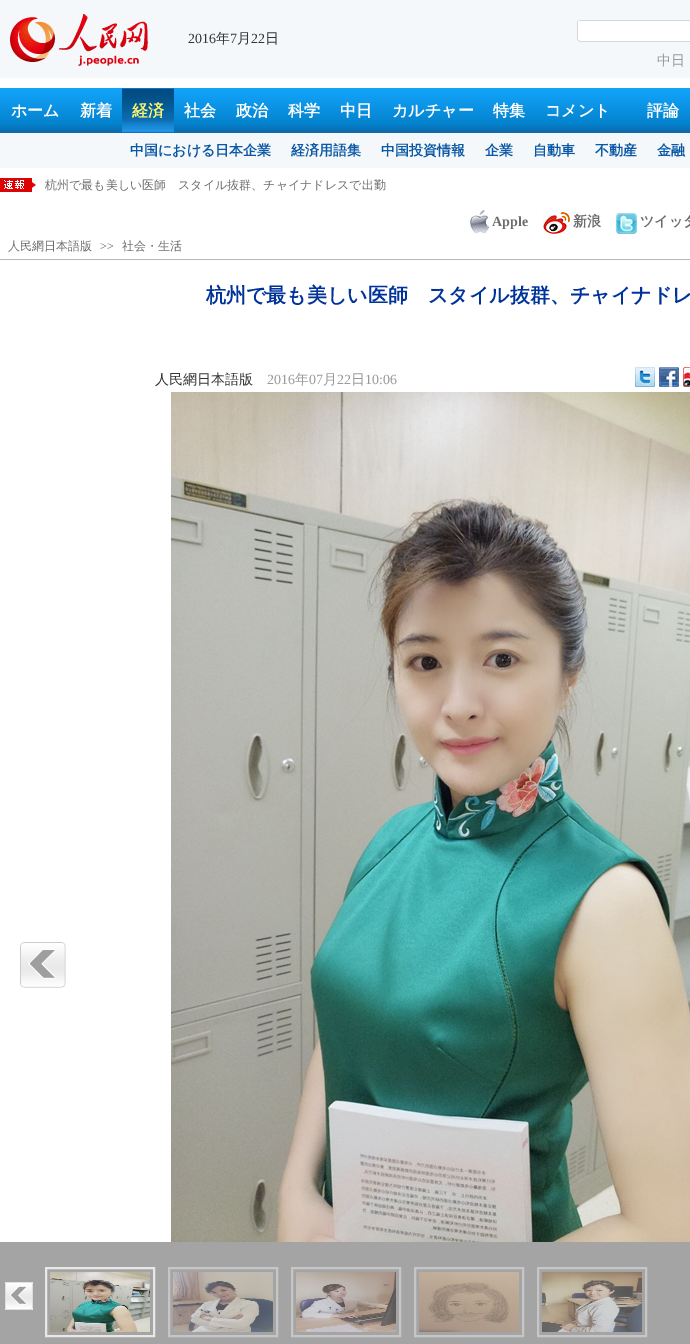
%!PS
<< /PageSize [690 1344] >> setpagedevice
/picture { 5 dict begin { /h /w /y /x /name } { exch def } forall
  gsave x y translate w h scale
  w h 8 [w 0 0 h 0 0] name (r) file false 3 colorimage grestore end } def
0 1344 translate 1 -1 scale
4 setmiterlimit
1 setgray
0 0 690 1344 rectfill
0.961 0.973 0.98 setrgbcolor
0 0 690 78 rectfill
(img1.rgb) 10 14 138 52 picture
/LiberationSerif-Regular [14 0 0 -14 0 0] selectfont
0.2 setgray
188 43 moveto (2016) show
/WenQuanYiZenHei-Medium [14 0 0 -14 0 0] selectfont
216 43 moveto (年) show
/LiberationSerif-Regular [14 0 0 -14 0 0] selectfont
230 43 moveto (7) show
/WenQuanYiZenHei-Medium [14 0 0 -14 0 0] selectfont
237 43 moveto (月) show
/LiberationSerif-Regular [14 0 0 -14 0 0] selectfont
251 43 moveto (22) show
/WenQuanYiZenHei-Medium [14 0 0 -14 0 0] selectfont
265 43 moveto (日) show
(img2.rgb) 577 20 113 22 picture
0.6 setgray
657 65 moveto (中日) show
(img3.rgb) 0 88 690 45 picture
/WenQuanYiZenHei-Bold [16 0 0 -16 0 0] selectfont
1 setgray
11 116 moveto (ホーム) show
80 116 moveto (新着) show
(img4.rgb) 122 88 52 45 picture
1 0.965 0.427 setrgbcolor
132 116 moveto (経済) show
1 setgray
184 116 moveto (社会) show
236 116 moveto (政治) show
288 116 moveto (科学) show
340 116 moveto (中日) show
392 116 moveto (カルチャー) show
493 116 moveto (特集) show
545 116 moveto (コメント) show
647 116 moveto (評論) show
0.961 0.973 0.98 setrgbcolor
0 133 690 35 rectfill
/WenQuanYiZenHei-Bold [14 0 0 -14 0 0] selectfont
0.039 0.345 0.647 setrgbcolor
130 155 moveto (中国における日本企業) show
291 155 moveto (経済用語集) show
381 155 moveto (中国投資情報) show
485 155 moveto (企業) show
533 155 moveto (自動車) show
595 155 moveto (不動産) show
657 155 moveto (金融) show
(img5.rgb) 0 178 36 14 picture
/WenQuanYiZenHei-Medium [12 0 0 -12 0 0] selectfont
0.42 setgray
45 189 moveto (杭州で最も美しい医師　スタイル抜群、チャイナドレスで出勤) show
(img6.rgb) 470 210 19 24 picture
/LiberationSerif-Bold [14 0 0 -14 0 0] selectfont
492 226 moveto (Apple) show
(img7.rgb) 543 210 27 24 picture
/WenQuanYiZenHei-Bold [14 0 0 -14 0 0] selectfont
573 226 moveto (新浪) show
(img8.rgb) 616 213 21 21 picture
640 226 moveto (ツイッタ) show
0.718 setgray
0 259 690 1 rectfill
/WenQuanYiZenHei-Medium [12 0 0 -12 0 0] selectfont
0.42 setgray
8 250 moveto (人民網日本語版) show
/LiberationSerif-Regular [12 0 0 -12 0 0] selectfont
100 250 moveto (>>) show
/WenQuanYiZenHei-Medium [12 0 0 -12 0 0] selectfont
122 250 moveto (社会・生活) show
/WenQuanYiZenHei-Bold [20 0 0 -20 0 0] selectfont
0 0.2 0.6 setrgbcolor
206 302 moveto (杭州で最も美しい医師　スタイル抜群、チャイナドレ) show
/WenQuanYiZenHei-Medium [14 0 0 -14 0 0] selectfont
0.2 setgray
155 384 moveto (人民網日本語版) show
/LiberationSerif-Regular [14 0 0 -14 0 0] selectfont
0.6 setgray
267 384 moveto (2016) show
/WenQuanYiZenHei-Medium [14 0 0 -14 0 0] selectfont
295 384 moveto (年) show
/LiberationSerif-Regular [14 0 0 -14 0 0] selectfont
309 384 moveto (07) show
/WenQuanYiZenHei-Medium [14 0 0 -14 0 0] selectfont
323 384 moveto (月) show
/LiberationSerif-Regular [14 0 0 -14 0 0] selectfont
337 384 moveto (22) show
/WenQuanYiZenHei-Medium [14 0 0 -14 0 0] selectfont
351 384 moveto (日) show
/LiberationSerif-Regular [14 0 0 -14 0 0] selectfont
365 384 moveto (10:06) show
(img9.rgb) 635 367 20 20 picture
(img10.rgb) 659 367 20 20 picture
(img11.rgb) 683 367 7 20 picture
(img12.rgb) 20 942 46 46 picture
(img13.rgb) 171 392 519 850 picture
0.643 setgray
0 1242 690 102 rectfill
(img14.rgb) 5 1282 28 28 picture
0.91 setgray
2 setlinewidth
46 1268 108 68 rectstroke
(img15.rgb) 50 1272 100 60 picture
0.776 setgray
169 1268 108 68 rectstroke
(img16.rgb) 173 1272 100 60 picture
292 1268 108 68 rectstroke
(img17.rgb) 296 1272 100 60 picture
415 1268 108 68 rectstroke
(img18.rgb) 419 1272 100 60 picture
538 1268 108 68 rectstroke
(img19.rgb) 542 1272 100 60 picture
showpage
